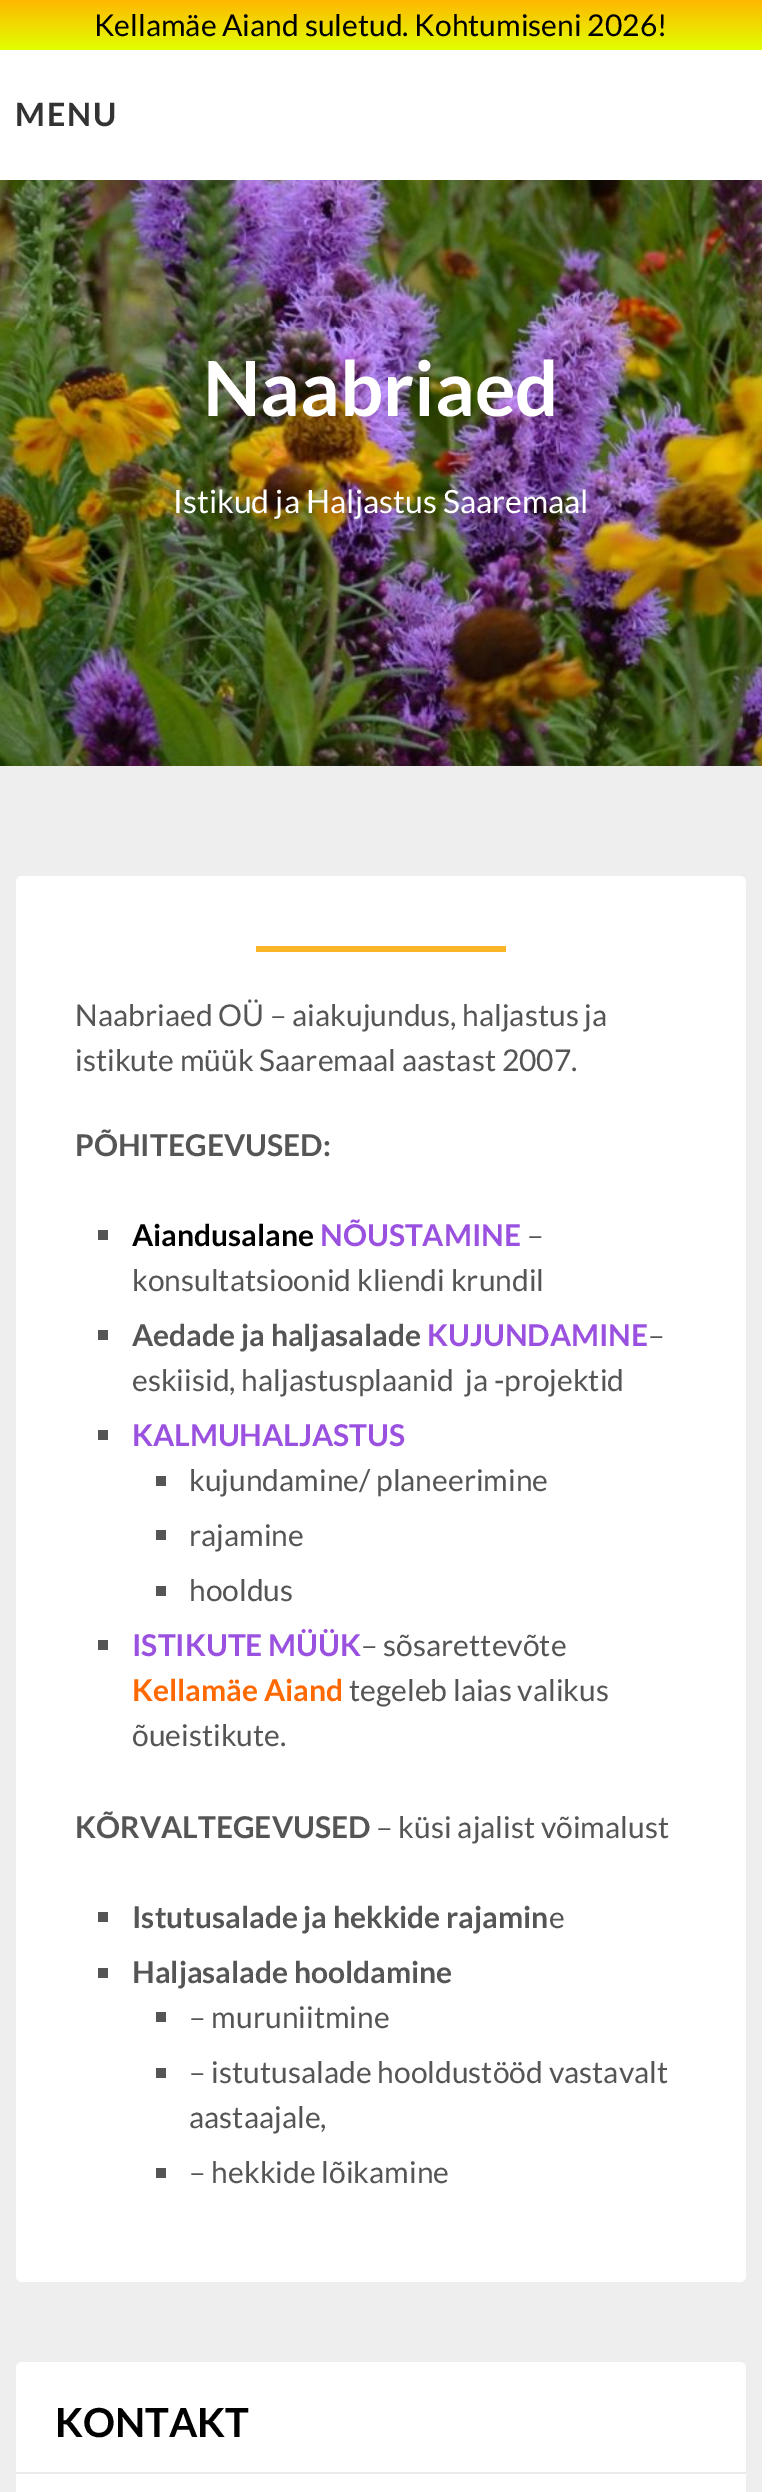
%!PS
<< /PageSize [762 2492] >> setpagedevice
/roundrect { 5 dict begin { /r /h /w /y /x } { exch def } forall
  x r add y moveto x w add y 2 copy h add r arct x w add y h add x 1 index r arct
  x y h add x y r arct x y 2 copy exch w add exch r arct closepath end } def
/picture { 5 dict begin { /h /w /y /x /name } { exch def } forall
  gsave x y translate w h scale
  w h 8 [w 0 0 h 0 0] name (r) file false 3 colorimage grestore end } def
0 2492 translate 1 -1 scale
4 setmiterlimit
0.933 setgray
0 0 762 2492 rectfill
gsave newpath 0 0 moveto 762 0 lineto 762 50 lineto 0 50 lineto closepath clip newpath
<< /ShadingType 2 /ColorSpace /DeviceRGB /Coords [381 0 381 50] /Extend [true true] /Function << /FunctionType 2 /Domain [0 1] /C0 [1 0.718 0] /C1 [0.882 1 0] /N 1 >> >> shfill grestore
/Lato-Regular [30 0 0 -30 0 0] selectfont
0 setgray
94 36 moveto (Kellamäe Aiand suletud. Kohtumiseni 2026!) show
(img1.rgb) 0 180 762 586 picture
1 setgray
0 50 762 130 rectfill
/Lato-Bold [32 0 0 -32 0 0] selectfont
0.2 setgray
15 126 moveto 2 0 (MENU) ashow
/Lato-Bold [76 0 0 -76 0 0] selectfont
1 setgray
203 416 moveto (Naabriaed) show
/Lato-Regular [32 0 0 -32 0 0] selectfont
173 513 moveto (Istikud ja Haljastus Saaremaal) show
16 876 730 1406 6 roundrect fill
0.98 0.71 0.149 setrgbcolor
256 946 250 6 rectfill
/Lato-Regular [30 0 0 -30 0 0] selectfont
0.333 setgray
75 1026 moveto (Naabriaed OÜ – aiakujundus, haljastus ja) show
75 1071 moveto (istikute müük Saaremaal aastast 2007.) show
/Lato-Bold [30 0 0 -30 0 0] selectfont
75 1156 moveto (PÕHITEGEVUSED:) show
98 1230 10 10 rectfill
0 setgray
132 1246 moveto (Aiandusalane) show
0.608 0.318 0.878 setrgbcolor
320 1246 moveto (NÕUSTAMINE) show
/Lato-Regular [30 0 0 -30 0 0] selectfont
0.333 setgray
527 1246 moveto (–) show
132 1291 moveto (konsultatsioonid kliendi krundil) show
98 1330 10 10 rectfill
/Lato-Bold [30 0 0 -30 0 0] selectfont
132 1346 moveto (Aedade ja haljasalade) show
0.608 0.318 0.878 setrgbcolor
427 1346 moveto (KUJUNDAMINE) show
/Lato-Regular [30 0 0 -30 0 0] selectfont
0.333 setgray
648 1346 moveto (–) show
132 1391 moveto (eskiisid, haljastusplaanid  ja -projektid) show
98 1430 10 10 rectfill
/Lato-Bold [30 0 0 -30 0 0] selectfont
0.608 0.318 0.878 setrgbcolor
132 1446 moveto (KALMUHALJASTUS) show
0.333 setgray
156 1476 10 10 rectfill
/Lato-Regular [30 0 0 -30 0 0] selectfont
189 1491 moveto (kujundamine/ planeerimine) show
156 1530 10 10 rectfill
189 1546 moveto (rajamine) show
156 1586 10 10 rectfill
189 1601 moveto (hooldus) show
98 1640 10 10 rectfill
/Lato-Bold [30 0 0 -30 0 0] selectfont
0.608 0.318 0.878 setrgbcolor
132 1656 moveto (ISTIKUTE MÜÜK) show
/Lato-Regular [30 0 0 -30 0 0] selectfont
0.333 setgray
361 1656 moveto (– sõsarettevõte) show
/Lato-Bold [30 0 0 -30 0 0] selectfont
1 0.412 0 setrgbcolor
132 1701 moveto (Kellamäe Aiand) show
/Lato-Regular [30 0 0 -30 0 0] selectfont
0.333 setgray
349 1701 moveto (tegeleb laias valikus) show
132 1746 moveto (õueistikute.) show
/Lato-Bold [30 0 0 -30 0 0] selectfont
75 1838 moveto (KÕRVALTEGEVUSED) show
/Lato-Regular [30 0 0 -30 0 0] selectfont
376 1838 moveto (– küsi ajalist võimalust) show
98 1912 10 10 rectfill
/Lato-Bold [30 0 0 -30 0 0] selectfont
132 1928 moveto (Istutusalade ja hekkide rajamin) show
/Lato-Regular [30 0 0 -30 0 0] selectfont
549 1928 moveto (e) show
98 1968 10 10 rectfill
/Lato-Bold [30 0 0 -30 0 0] selectfont
132 1983 moveto (Haljasalade hooldamine) show
156 2012 10 10 rectfill
/Lato-Regular [30 0 0 -30 0 0] selectfont
189 2028 moveto (– muruniitmine) show
156 2068 10 10 rectfill
189 2083 moveto (– istutusalade hooldustööd vastavalt) show
189 2128 moveto (aastaajale,) show
156 2168 10 10 rectfill
189 2183 moveto (– hekkide lõikamine) show
1 setgray
16 2362 730 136 6 roundrect fill
0.922 setgray
16 2472 730 2 rectfill
/Lato-Bold [40 0 0 -40 0 0] selectfont
0 setgray
55 2437 moveto (KONTAKT) show
showpage
